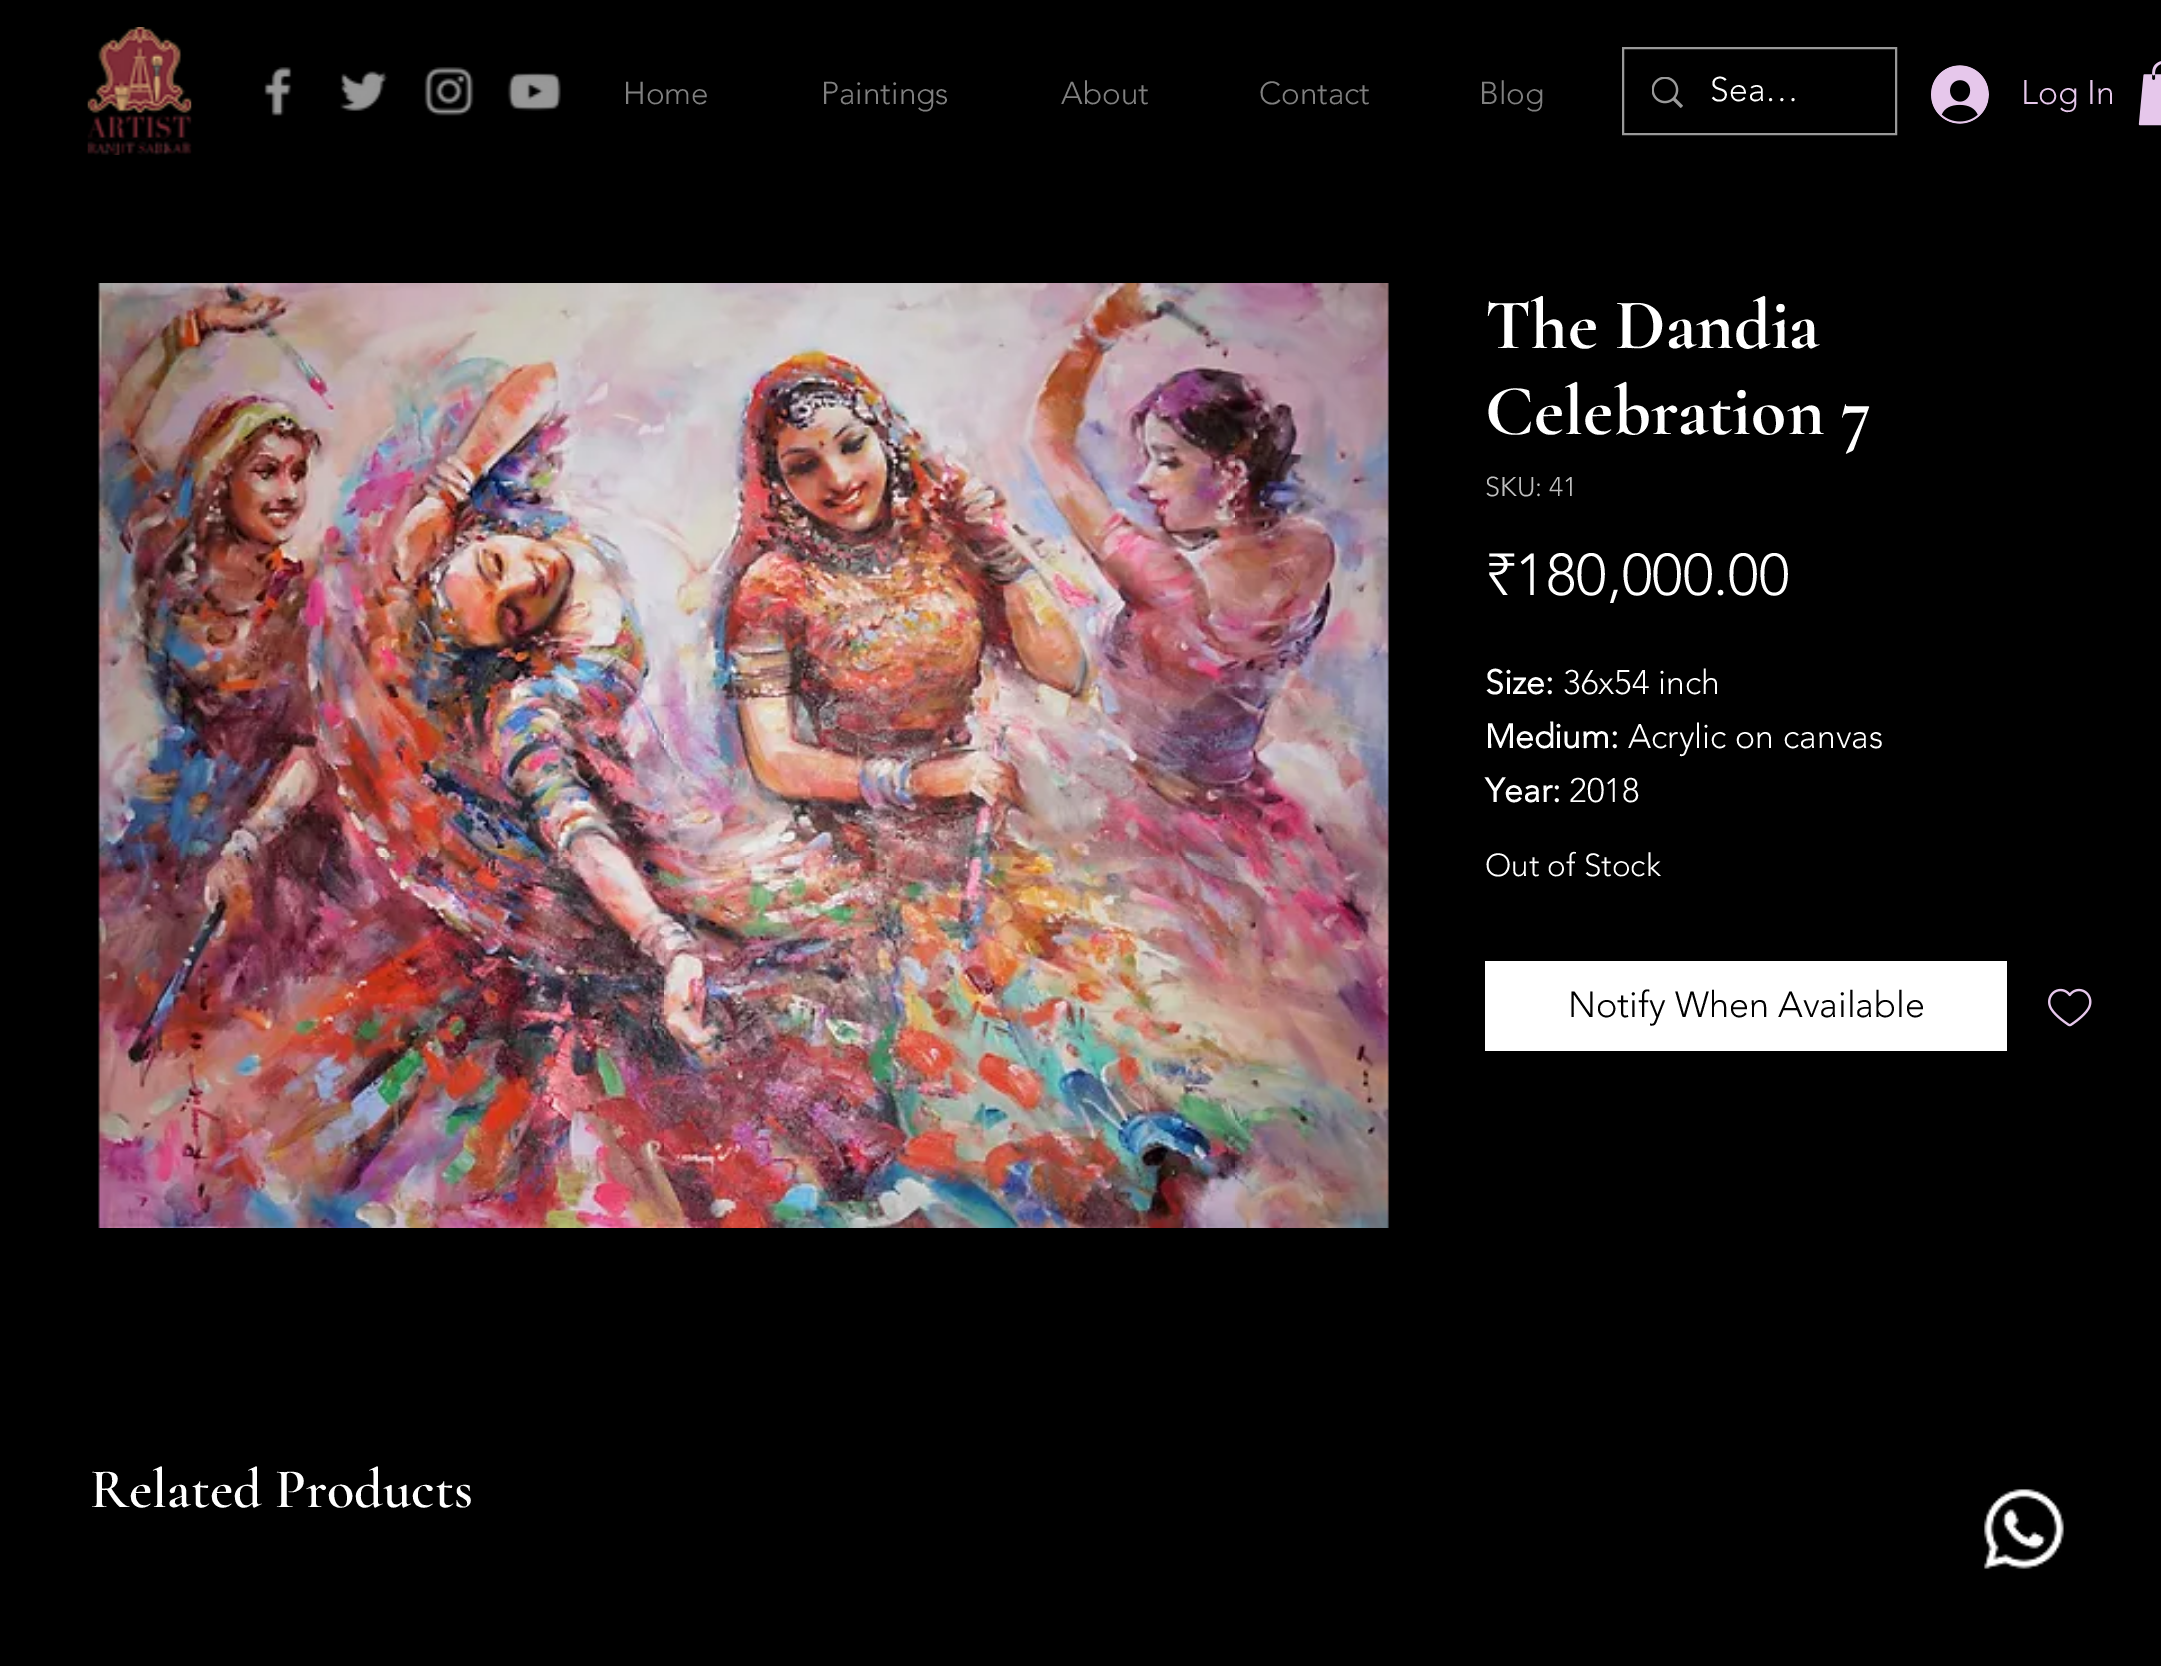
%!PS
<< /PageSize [2161 1666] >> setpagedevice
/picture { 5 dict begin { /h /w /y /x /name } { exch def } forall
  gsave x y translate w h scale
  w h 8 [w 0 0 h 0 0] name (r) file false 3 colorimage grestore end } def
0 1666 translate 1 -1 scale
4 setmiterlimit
0 setgray
0 0 2161 1666 rectfill
(img1.rgb) 87 27 105 128 picture
(img2.rgb) 264 67 28 49 picture
(img3.rgb) 340 71 48 40 picture
(img4.rgb) 424 67 50 49 picture
(img5.rgb) 507 72 54 39 picture
/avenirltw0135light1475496-Light [31.5 0 0 -31.5 0 0] selectfont
0.502 setgray
623 104 moveto (Home) show
821 104 moveto (Paintings) show
1061 104 moveto (About) show
1259 104 moveto (Contact) show
1479 104 moveto (Blog) show
0.6 setgray
2 setlinewidth
1623 48 273 86 rectstroke
(img6.rgb) 1652 77 31 31 picture
/avenirltw0135light1475496-Light [33.75 0 0 -33.75 0 0] selectfont
1 setgray
1710 101 moveto (Sea…) show
(img7.rgb) 1931 65 58 59 picture
0.902 0.78 0.922 setrgbcolor
2021 104 moveto (Log In) show
(img8.rgb) 2138 61 23 65 picture
(img9.rgb) 98 283 1291 945 picture
/CormorantGaramond-Bold [72 0 0 -72 0 0] selectfont
1 setgray
1485 348 moveto (The Dandia) show
1485 434 moveto (Celebration 7) show
/avenirltw0135light1475496-Light [27 0 0 -27 0 0] selectfont
0.749 setgray
1485 496 moveto (SKU: 41) show
/avenirltw0135light1475496-Light [58.5 0 0 -58.5 0 0] selectfont
1 setgray
1485 595 moveto (₹180,000.00) show
/avenirltw0135light1475496-Bold [33.75 0 0 -33.75 0 0] selectfont
1485 694 moveto (Size:) show
/avenirltw0135light1475496-Light [33.75 0 0 -33.75 0 0] selectfont
1563 694 moveto (36x54 inch) show
/avenirltw0135light1475496-Bold [33.75 0 0 -33.75 0 0] selectfont
1485 748 moveto (Medium:) show
/avenirltw0135light1475496-Light [33.75 0 0 -33.75 0 0] selectfont
1628 748 moveto (Acrylic on canvas) show
/avenirltw0135light1475496-Bold [33.75 0 0 -33.75 0 0] selectfont
1485 802 moveto (Year:) show
/avenirltw0135light1475496-Light [33.75 0 0 -33.75 0 0] selectfont
1569 802 moveto (2018) show
/avenirltw0135light1475496-Light [31.5 0 0 -31.5 0 0] selectfont
1485 876 moveto (Out of Stock) show
1485 961 522 90 rectfill
/avenirltw0135light1475496-Light [36 0 0 -36 0 0] selectfont
0 setgray
1568 1017 moveto (Notify When Available) show
(img10.rgb) 2048 988 44 39 picture
/CormorantGaramond-SemiBold [56.25 0 0 -56.25 0 0] selectfont
1 setgray
90 1507 moveto (Related Products) show
(img11.rgb) 1984 1489 80 80 picture
showpage
